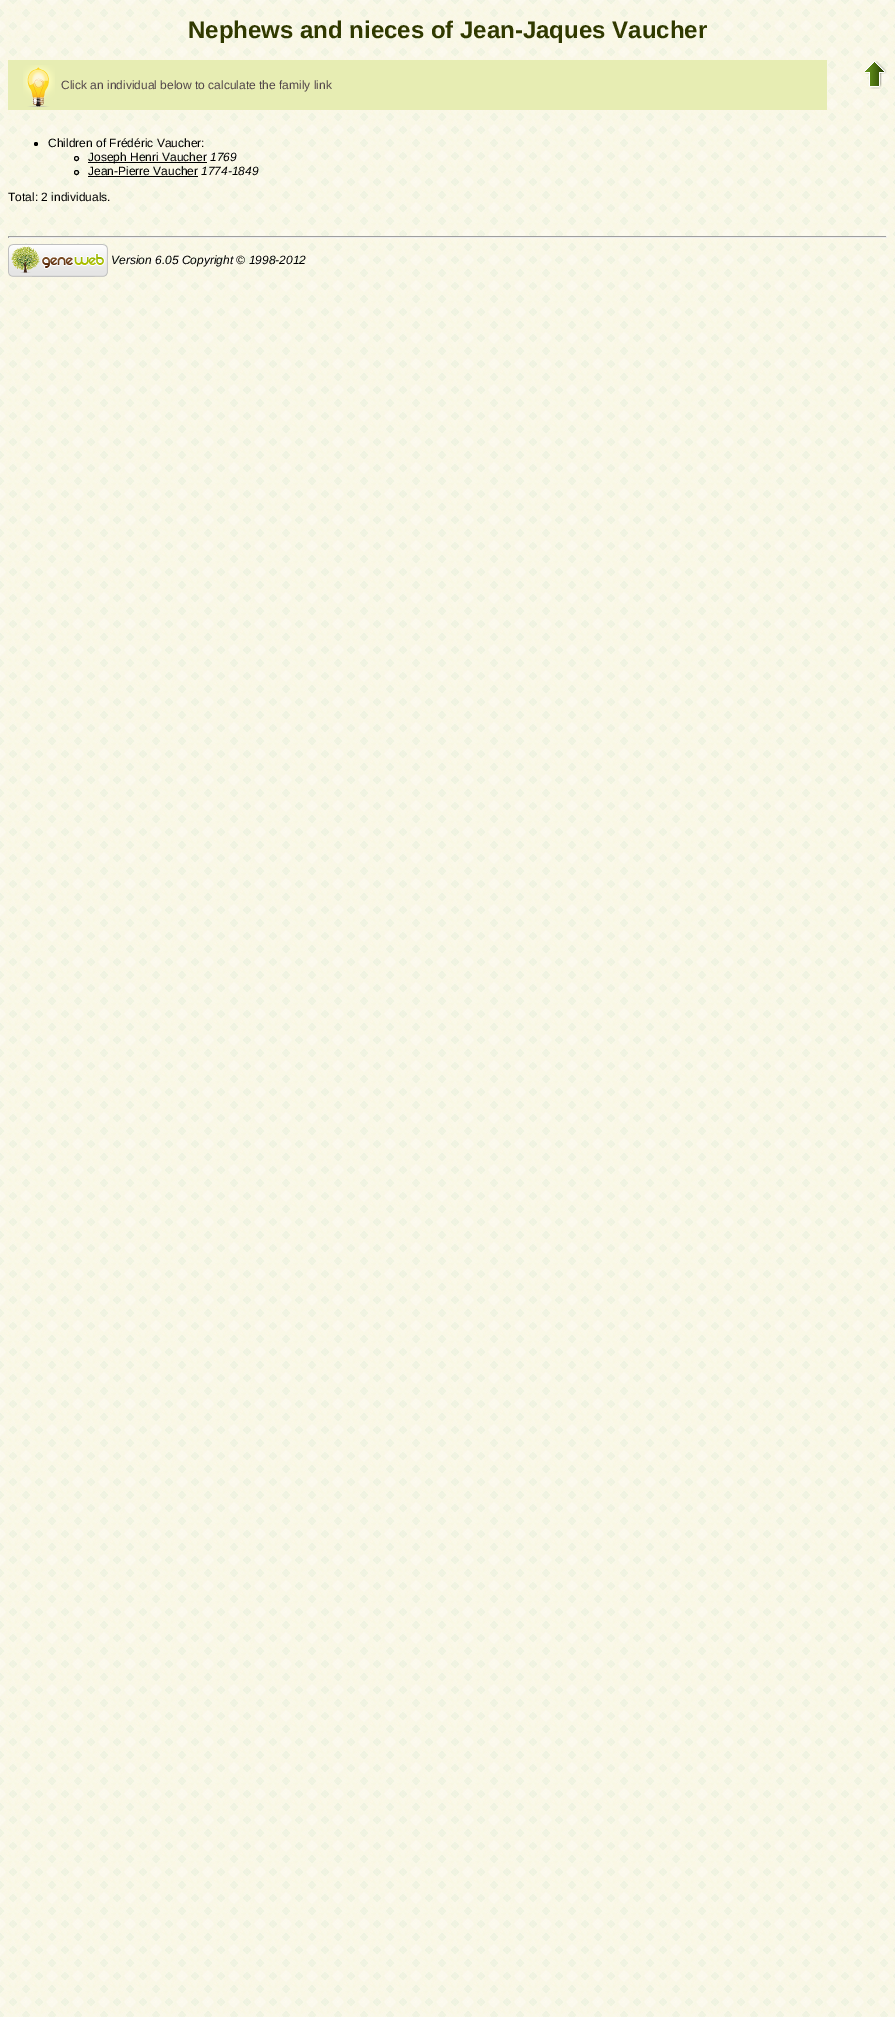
%!PS
<< /PageSize [895 2017] >> setpagedevice
/picture { 5 dict begin { /h /w /y /x /name } { exch def } forall
  gsave x y translate w h scale
  w h 8 [w 0 0 h 0 0] name (r) file false 3 colorimage grestore end } def
0 2017 translate 1 -1 scale
4 setmiterlimit
1 setgray
0 0 895 2017 rectfill
(img1.rgb) 0 0 895 2017 picture
/LiberationSans-Bold [24 0 0 -24 0 0] selectfont
0.188 0.224 0 setrgbcolor
188 38 moveto (Nephews and nieces of Jean-Jaques Vaucher) show
0.906 0.929 0.702 setrgbcolor
8 60 819 50 rectfill
(img2.rgb) 23 65 32 42 picture
/LiberationSans-Regular [12 0 0 -12 0 0] selectfont
0.318 0.271 0.286 setrgbcolor
61 89 moveto (Click an individual below to calculate the family link) show
(img3.rgb) 865 61 22 28 picture
0 setgray
newpath 36 144 2 0 360 arc closepath fill
48 147 moveto (Children of Frédéric Vaucher:) show
newpath 76.5 158.5 2 0 360 arc closepath stroke
88 162 119 1 rectfill
88 161 moveto (Joseph Henri Vaucher) show
/LiberationSans-Italic [12 0 0 -12 0 0] selectfont
210 161 moveto (1769) show
newpath 76.5 172.5 2 0 360 arc closepath stroke
/LiberationSans-Regular [12 0 0 -12 0 0] selectfont
88 175 moveto (Jean-Pierre Vaucher) show
88 176 110 1 rectfill
/LiberationSans-Italic [12 0 0 -12 0 0] selectfont
201 175 moveto (1774-1849) show
/LiberationSans-Regular [12 0 0 -12 0 0] selectfont
8 201 moveto (Total: 2 individuals.) show
0.624 setgray
8 236 879 1 rectfill
0.933 setgray
886 236 1 2 rectfill
8 237 879 1 rectfill
0.624 setgray
8 236 1 2 rectfill
(img4.rgb) 8 244 100 33 picture
/LiberationSans-Italic [12 0 0 -12 0 0] selectfont
0 setgray
111 264 moveto (Version 6.05 Copyright © 1998-2012) show
showpage
